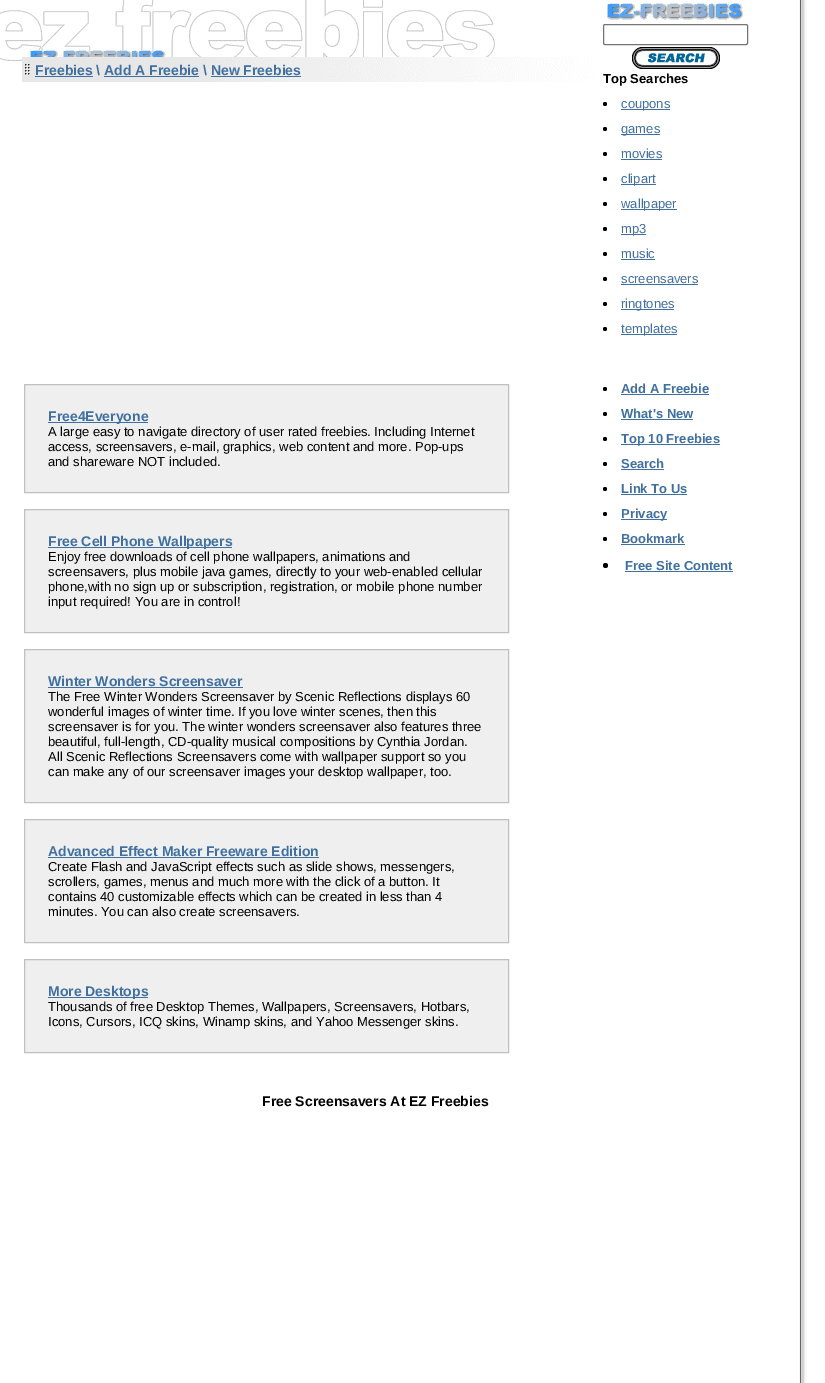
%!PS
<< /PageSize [825 1383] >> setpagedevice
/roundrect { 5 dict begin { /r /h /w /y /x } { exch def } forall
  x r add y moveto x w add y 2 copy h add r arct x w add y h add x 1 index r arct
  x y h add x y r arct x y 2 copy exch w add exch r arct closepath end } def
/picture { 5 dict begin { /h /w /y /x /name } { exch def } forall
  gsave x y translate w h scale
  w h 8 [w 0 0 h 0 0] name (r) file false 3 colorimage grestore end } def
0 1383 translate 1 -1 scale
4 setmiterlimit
1 setgray
0 0 825 1383 rectfill
(img1.rgb) 0 0 807 1383 picture
(img2.rgb) 22 57 576 25 picture
(img3.rgb) 25 64 5 11 picture
/LiberationSans-Bold [14 0 0 -14 0 0] selectfont
0.251 0.439 0.627 setrgbcolor
35 75 moveto (Freebies \\ Add A Freebie \\ New Freebies) show
35 76 58 1 rectfill
104 76 95 1 rectfill
211 76 90 1 rectfill
0.937 setgray
newpath 24.5 384.5 moveto 508.5 384.5 lineto 508.5 492.5 lineto 24.5 492.5 lineto closepath gsave fill grestore
0.753 setgray
stroke
0.251 0.439 0.627 setrgbcolor
48 422 100 1 rectfill
48 421 moveto (Free4Everyone) show
/LiberationSans-Regular [13 0 0 -13 0 0] selectfont
0 setgray
48 436 moveto (A large easy to navigate directory of user rated freebies. Including Internet) show
48 451 moveto (access, screensavers, e-mail, graphics, web content and more. Pop-ups) show
48 466 moveto (and shareware NOT included.) show
0.937 setgray
newpath 24.5 509.5 moveto 508.5 509.5 lineto 508.5 632.5 lineto 24.5 632.5 lineto closepath gsave fill grestore
0.753 setgray
stroke
0.251 0.439 0.627 setrgbcolor
48 547 184 1 rectfill
/LiberationSans-Bold [14 0 0 -14 0 0] selectfont
48 546 moveto (Free Cell Phone Wallpapers) show
/LiberationSans-Regular [13 0 0 -13 0 0] selectfont
0 setgray
48 561 moveto (Enjoy free downloads of cell phone wallpapers, animations and) show
48 576 moveto (screensavers, plus mobile java games, directly to your web-enabled cellular) show
48 591 moveto (phone,with no sign up or subscription, registration, or mobile phone number) show
48 606 moveto (input required! You are in control!) show
0.937 setgray
newpath 24.5 649.5 moveto 508.5 649.5 lineto 508.5 802.5 lineto 24.5 802.5 lineto closepath gsave fill grestore
0.753 setgray
stroke
/LiberationSans-Bold [14 0 0 -14 0 0] selectfont
0.251 0.439 0.627 setrgbcolor
48 686 moveto (Winter Wonders Screensaver) show
48 687 195 1 rectfill
/LiberationSans-Regular [13 0 0 -13 0 0] selectfont
0 setgray
48 701 moveto (The Free Winter Wonders Screensaver by Scenic Reflections displays 60) show
48 716 moveto (wonderful images of winter time. If you love winter scenes, then this) show
48 731 moveto (screensaver is for you. The winter wonders screensaver also features three) show
48 746 moveto (beautiful, full-length, CD-quality musical compositions by Cynthia Jordan.) show
48 761 moveto (All Scenic Reflections Screensavers come with wallpaper support so you) show
48 776 moveto (can make any of our screensaver images your desktop wallpaper, too.) show
0.937 setgray
newpath 24.5 819.5 moveto 508.5 819.5 lineto 508.5 942.5 lineto 24.5 942.5 lineto closepath gsave fill grestore
0.753 setgray
stroke
/LiberationSans-Bold [14 0 0 -14 0 0] selectfont
0.251 0.439 0.627 setrgbcolor
48 856 moveto (Advanced Effect Maker Freeware Edition) show
48 857 271 1 rectfill
/LiberationSans-Regular [13 0 0 -13 0 0] selectfont
0 setgray
48 871 moveto (Create Flash and JavaScript effects such as slide shows, messengers,) show
48 886 moveto (scrollers, games, menus and much more with the click of a button. It) show
48 901 moveto (contains 40 customizable effects which can be created in less than 4) show
48 916 moveto (minutes. You can also create screensavers.) show
0.937 setgray
newpath 24.5 959.5 moveto 508.5 959.5 lineto 508.5 1052.5 lineto 24.5 1052.5 lineto closepath gsave fill grestore
0.753 setgray
stroke
0.251 0.439 0.627 setrgbcolor
48 997 100 1 rectfill
/LiberationSans-Bold [14 0 0 -14 0 0] selectfont
48 996 moveto (More Desktops) show
/LiberationSans-Regular [13 0 0 -13 0 0] selectfont
0 setgray
48 1011 moveto (Thousands of free Desktop Themes, Wallpapers, Screensavers, Hotbars,) show
48 1026 moveto (Icons, Cursors, ICQ skins, Winamp skins, and Yahoo Messenger skins.) show
(img4.rgb) 607 3 136 17 picture
0.463 setgray
603.5 24.5 144 20 1.5 roundrect stroke
(img5.rgb) 632 47 88 22 picture
/LiberationSans-Bold [13 0 0 -13 0 0] selectfont
0 setgray
603 83 moveto (Top Searches) show
newpath 605 104 2 0 360 arc closepath fill
0.251 0.439 0.627 setrgbcolor
621 109 49 1 rectfill
/LiberationSans-Regular [13 0 0 -13 0 0] selectfont
621 108 moveto (coupons) show
0 setgray
newpath 605 129 2 0 360 arc closepath fill
0.251 0.439 0.627 setrgbcolor
621 134 39 1 rectfill
621 133 moveto (games) show
0 setgray
newpath 605 154 2 0 360 arc closepath fill
0.251 0.439 0.627 setrgbcolor
621 158 moveto (movies) show
621 159 41 1 rectfill
0 setgray
newpath 605 179 2 0 360 arc closepath fill
0.251 0.439 0.627 setrgbcolor
621 184 35 1 rectfill
621 183 moveto (clipart) show
0 setgray
newpath 605 204 2 0 360 arc closepath fill
0.251 0.439 0.627 setrgbcolor
621 209 56 1 rectfill
621 208 moveto (wallpaper) show
0 setgray
newpath 605 229 2 0 360 arc closepath fill
0.251 0.439 0.627 setrgbcolor
621 234 25 1 rectfill
621 233 moveto (mp3) show
0 setgray
newpath 605 254 2 0 360 arc closepath fill
0.251 0.439 0.627 setrgbcolor
621 258 moveto (music) show
621 259 34 1 rectfill
0 setgray
newpath 605 279 2 0 360 arc closepath fill
0.251 0.439 0.627 setrgbcolor
621 283 moveto (screensavers) show
621 284 77 1 rectfill
0 setgray
newpath 605 304 2 0 360 arc closepath fill
0.251 0.439 0.627 setrgbcolor
621 309 53 1 rectfill
621 308 moveto (ringtones) show
0 setgray
newpath 605 329 2 0 360 arc closepath fill
0.251 0.439 0.627 setrgbcolor
621 334 56 1 rectfill
621 333 moveto (templates) show
0 setgray
newpath 605 389 2 0 360 arc closepath fill
/LiberationSans-Bold [13 0 0 -13 0 0] selectfont
0.251 0.439 0.627 setrgbcolor
621 393 moveto (Add A Freebie) show
621 394 88 1 rectfill
0 setgray
newpath 605 414 2 0 360 arc closepath fill
0.251 0.439 0.627 setrgbcolor
621 418 moveto (What's New) show
621 419 72 1 rectfill
0 setgray
newpath 605 439 2 0 360 arc closepath fill
0.251 0.439 0.627 setrgbcolor
621 444 99 1 rectfill
621 443 moveto (Top 10 Freebies) show
0 setgray
newpath 605 464 2 0 360 arc closepath fill
0.251 0.439 0.627 setrgbcolor
621 468 moveto (Search) show
621 469 43 1 rectfill
0 setgray
newpath 605 489 2 0 360 arc closepath fill
0.251 0.439 0.627 setrgbcolor
621 493 moveto (Link To Us) show
621 494 66 1 rectfill
0 setgray
newpath 605 514 2 0 360 arc closepath fill
0.251 0.439 0.627 setrgbcolor
621 519 46 1 rectfill
621 518 moveto (Privacy) show
0 setgray
newpath 605 539 2 0 360 arc closepath fill
0.251 0.439 0.627 setrgbcolor
621 543 moveto (Bookmark) show
621 544 64 1 rectfill
0 setgray
newpath 605.5 565.5 2.5 0 360 arc closepath fill
0.251 0.439 0.627 setrgbcolor
625 570 moveto (Free Site Content) show
625 571 108 1 rectfill
/LiberationSans-Bold [14 0 0 -14 0 0] selectfont
0 setgray
262 1106 moveto (Free Screensavers At EZ Freebies) show
showpage
